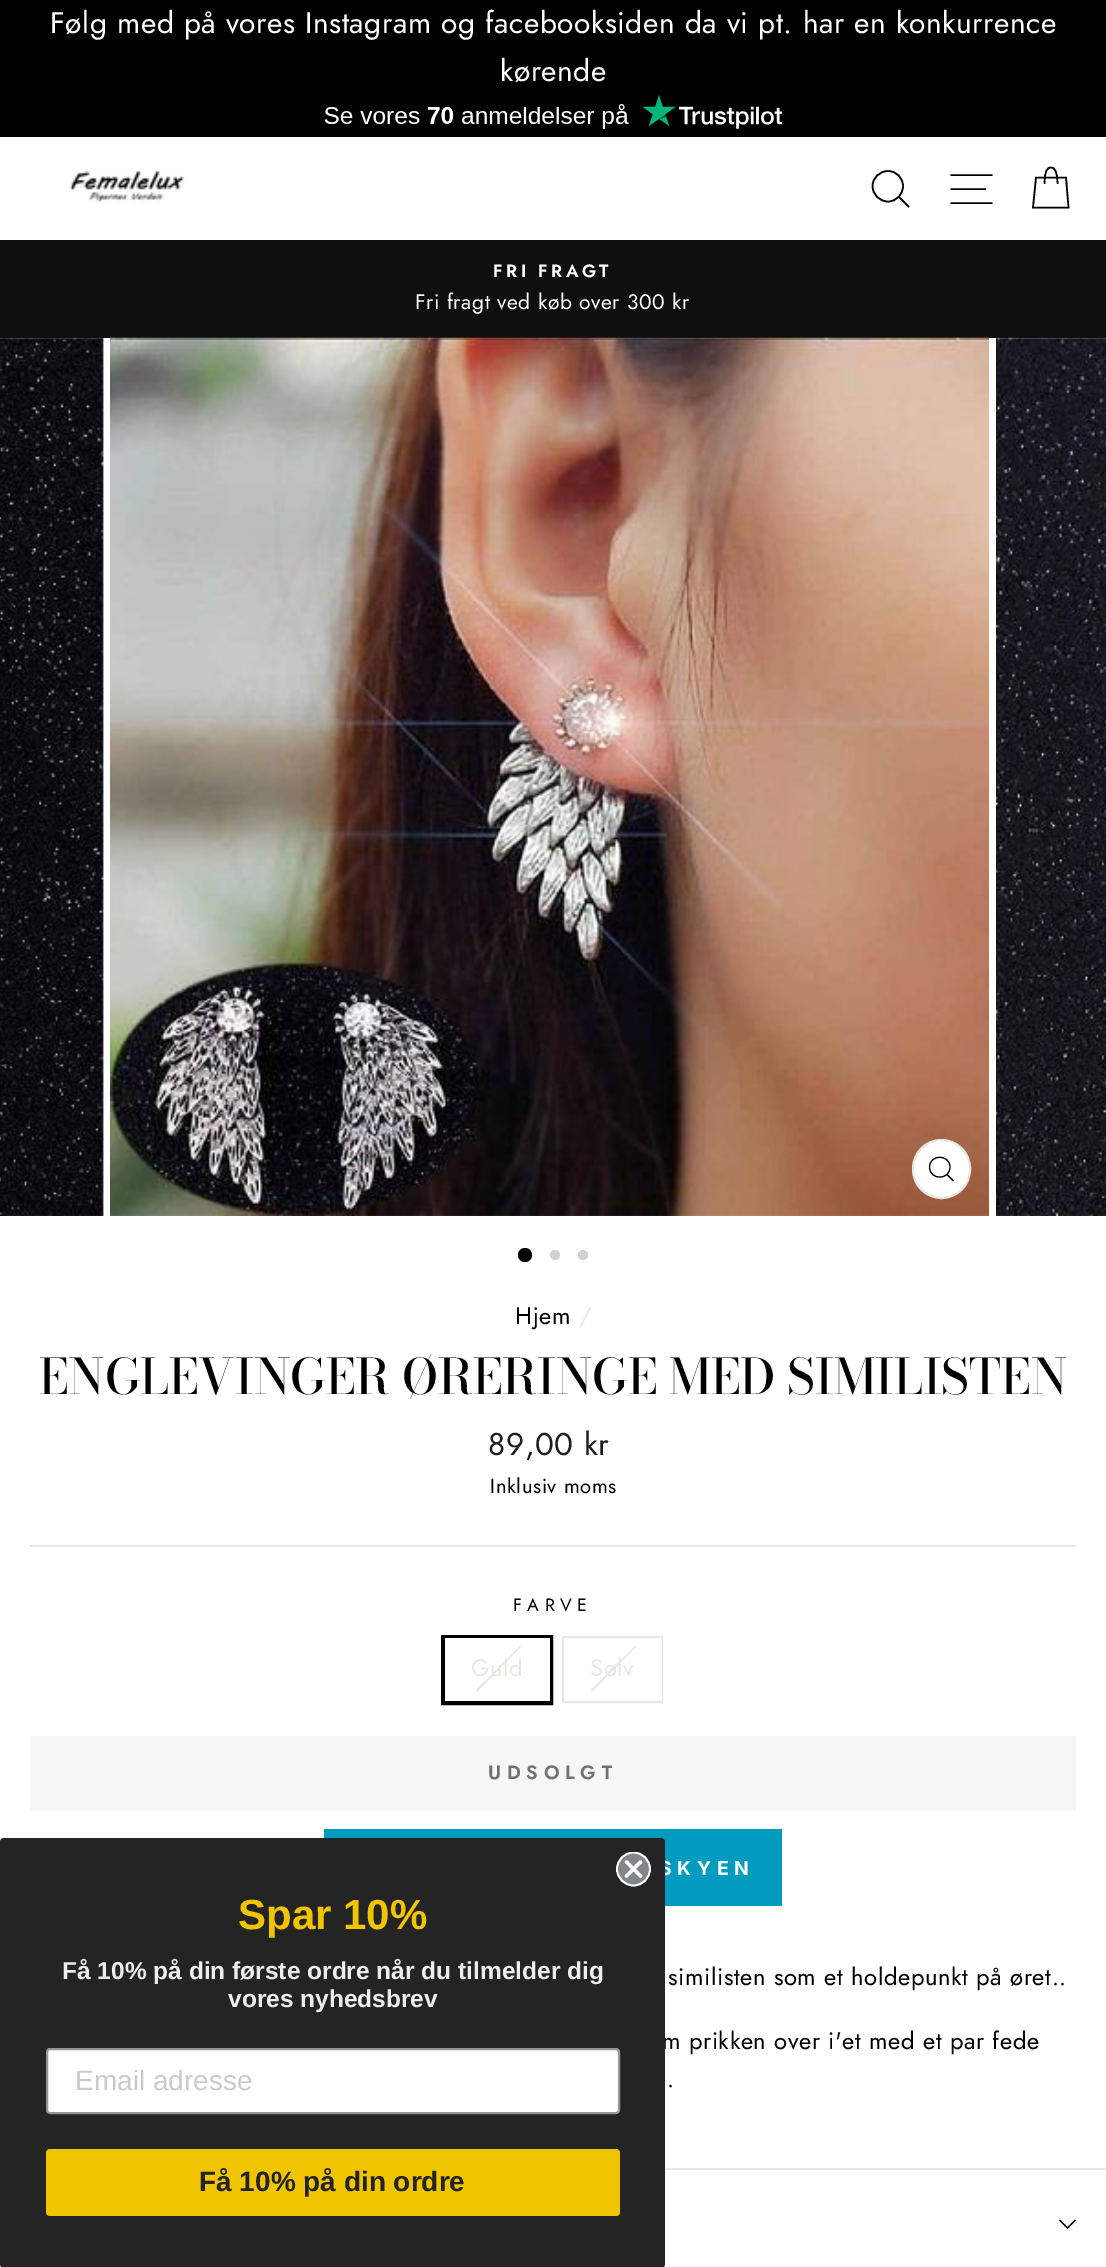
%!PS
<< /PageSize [1106 2267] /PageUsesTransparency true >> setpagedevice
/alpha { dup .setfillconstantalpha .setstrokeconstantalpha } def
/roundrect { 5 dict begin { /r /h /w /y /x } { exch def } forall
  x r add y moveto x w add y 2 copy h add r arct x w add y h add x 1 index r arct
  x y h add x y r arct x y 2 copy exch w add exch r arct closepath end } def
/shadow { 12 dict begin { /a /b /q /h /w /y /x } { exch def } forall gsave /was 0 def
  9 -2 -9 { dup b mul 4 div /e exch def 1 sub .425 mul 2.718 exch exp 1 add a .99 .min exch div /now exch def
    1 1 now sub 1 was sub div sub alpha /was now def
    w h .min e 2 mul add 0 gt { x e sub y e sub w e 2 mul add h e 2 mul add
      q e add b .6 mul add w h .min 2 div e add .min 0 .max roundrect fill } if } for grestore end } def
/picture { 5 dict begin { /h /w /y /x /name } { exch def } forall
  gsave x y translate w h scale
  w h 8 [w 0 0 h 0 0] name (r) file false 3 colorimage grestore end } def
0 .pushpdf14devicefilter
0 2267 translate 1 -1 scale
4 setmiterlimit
1 setgray
0 0 1106 2267 rectfill
0 setgray
0 0 1106 137 rectfill
/Jost-Regular [29.75 0 0 -29.75 0 0] selectfont
1 setgray
50 33 moveto 0.6 0 (Følg med på vores Instagram og facebooksiden da vi pt. har en konkurrence) ashow
500 81 moveto 0.6 0 (kørende) ashow
(img1.rgb) 324 95 458 34 picture
0 setgray
0 137 1106 103 0 1 0.2 shadow
1 setgray
0 137 1106 103 rectfill
(img2.rgb) 69 170 116 34 picture
0 setgray
1.6 setlinewidth
newpath 903 186 moveto 903 194.5 896.5 201.5 888 201.5 curveto 879.5 201.5 872.5 194.5 872.5 186 curveto 872.5 178 879.5 171 888 171 curveto 896.5 171 903 178 903 186 curveto closepath 909 207 moveto 899 197 lineto stroke
newpath 950.5 175 moveto 992.5 175 lineto 950.5 189 moveto 986 189 lineto 950.5 203 moveto 992.5 203 lineto stroke
newpath 1044.5 184 moveto 1044.5 171 1047 167.5 1051 167.5 curveto 1054.5 167.5 1057.5 171 1057.5 184 curveto 1036 177.5 moveto 1066 177.5 lineto 1068.5 207.5 lineto 1033 207.5 lineto closepath stroke
0.059 setgray
0 240 1106 98 rectfill
/Jost-SemiBold [17.75 0 0 -17.75 0 0] selectfont
1 setgray
493 277 moveto 3.5 0 (FRI FRAGT) ashow
/Jost-Regular [21 0 0 -21 0 0] selectfont
415 309 moveto 0.6 0 (Fri fragt ved køb over 300 kr) ashow
(img3.rgb) 0 337 104 879 picture
(img4.rgb) 110 337 879 879 picture
913 1140 57 58 28.5 roundrect gsave fill grestore
0.91 0.91 0.882 setrgbcolor
2 setlinewidth
stroke
0 setgray
1.1 setlinewidth
newpath 950 1167 moveto 950 1180.5 929.5 1180.5 929.5 1167 curveto 929.5 1154 950 1154 950 1167 curveto closepath 953.5 1181 moveto 947 1174.5 lineto stroke
(img5.rgb) 996 337 110 879 picture
newpath 525 1255 7 0 360 arc closepath fill
0.82 setgray
newpath 555 1255 5 0 360 arc closepath fill
newpath 583 1255 5 0 360 arc closepath fill
/Jost-Regular [23.75 0 0 -23.75 0 0] selectfont
0 setgray
515 1324 moveto 0.6 0 (Hjem) ashow
0.91 0.91 0.882 setrgbcolor
579 1324 moveto 0.6 0 (/) ashow
/BodoniModa-Medium [48.6 0 0 -48.6 0 0] selectfont
0 setgray
39 1394 moveto (ENGLEVINGER ØRERINGE MED SIMILISTEN) show
/Jost-Regular [31.5 0 0 -31.5 0 0] selectfont
0.11 0.114 0.114 setrgbcolor
488 1455 moveto 0.6 0 (89,00 kr) ashow
/Jost-Regular [20.25 0 0 -20.25 0 0] selectfont
0 setgray
490 1493 moveto 0.6 0 (Inklusiv moms) ashow
0.91 0.91 0.882 setrgbcolor
30 1545 1046 2 rectfill
/Jost-Regular [17.75 0 0 -17.75 0 0] selectfont
0 setgray
513 1611 moveto 5.5 0 (FARVE) ashow
4 setlinewidth
443 1637 108 66 rectstroke
1 setgray
445 1638 105 63 rectfill
0.91 0.91 0.882 setrgbcolor
newpath 520 1646 moveto 521 1647 lineto 477 1692 lineto 476 1690 lineto closepath fill
/Jost-Regular [23.75 0 0 -23.75 0 0] selectfont
471 1676 moveto 0.6 0 (Guld) ashow
2 setlinewidth
563 1637 99 65 rectstroke
1 setgray
661 1638 1 63 rectfill
0.91 0.91 0.882 setrgbcolor
newpath 635 1646 moveto 636 1647 lineto 592 1692 lineto 591 1690 lineto closepath fill
590 1676 moveto 0.6 0 (Sølv) ashow
0.965 setgray
30 1736 1046 75 rectfill
/Jost-SemiBold [19.25 0 0 -19.25 0 0] selectfont
0.443 setgray
488 1779 moveto 5.75 0 (UDSOLGT) ashow
0 0.608 0.749 setrgbcolor
324 1829 458 77 rectfill
/Inter-Bold [19.25 0 0 -19.25 0 0] selectfont
1 setgray
659 1875 moveto 5.75 0 (SKYEN) ashow
/Jost-Regular [23.75 0 0 -23.75 0 0] selectfont
0 setgray
668 1985 moveto 0.6 0 (similisten som et holdepunkt på øret..) ashow
662 2049 moveto 0.6 0 (m prikken over i'et med et par fede) ashow
667 2087 moveto 0.6 0 (.) ashow
0.91 0.91 0.882 setrgbcolor
665 2168 441 2 rectfill
0 setgray
1.2 setlinewidth
newpath 1059.5 2220 moveto 1067.5 2228 lineto 1075.5 2220 lineto stroke
0.141 setgray
0 1838 665 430 4 roundrect fill
0.51 0.525 0.545 setrgbcolor
newpath 633.5 1869 16.5 0 360 arc closepath fill
gsave
616 1852 35 35 rectclip
1 setgray
1.8 setlinewidth
newpath 633.5 1869 16.5 0 360 arc closepath stroke
grestore
1 setgray
3.5 setlinewidth
1 setlinecap
1 setlinejoin
newpath 626.5 1862 moveto 640.5 1876 lineto 626.5 1876 moveto 640.5 1862 lineto closepath stroke
/LiberationSans-Bold [42 0 0 -42 0 0] selectfont
0.945 0.769 0 setrgbcolor
238 1929 moveto (Spar 10%) show
/LiberationSans-Bold [24.5 0 0 -24.5 0 0] selectfont
0.933 setgray
62 1979 moveto (Få 10% på din første ordre når du tilmelder dig) show
228 2007 moveto (vores nyhedsbrev) show
1 setgray
47 2049 572 64 3 roundrect gsave fill grestore
0.58 0.584 0.588 setrgbcolor
2 setlinewidth
0 setlinecap
0 setlinejoin
stroke
/LiberationSans-Regular [28 0 0 -28 0 0] selectfont
0.792 0.792 0.796 setrgbcolor
75 2090 moveto (Email adresse) show
0.945 0.769 0 setrgbcolor
46 2149 574 67 4 roundrect fill
/LiberationSans-Bold [28 0 0 -28 0 0] selectfont
0.141 setgray
199 2191 moveto (Få 10% på din ordre) show
.poppdf14devicefilter showpage
